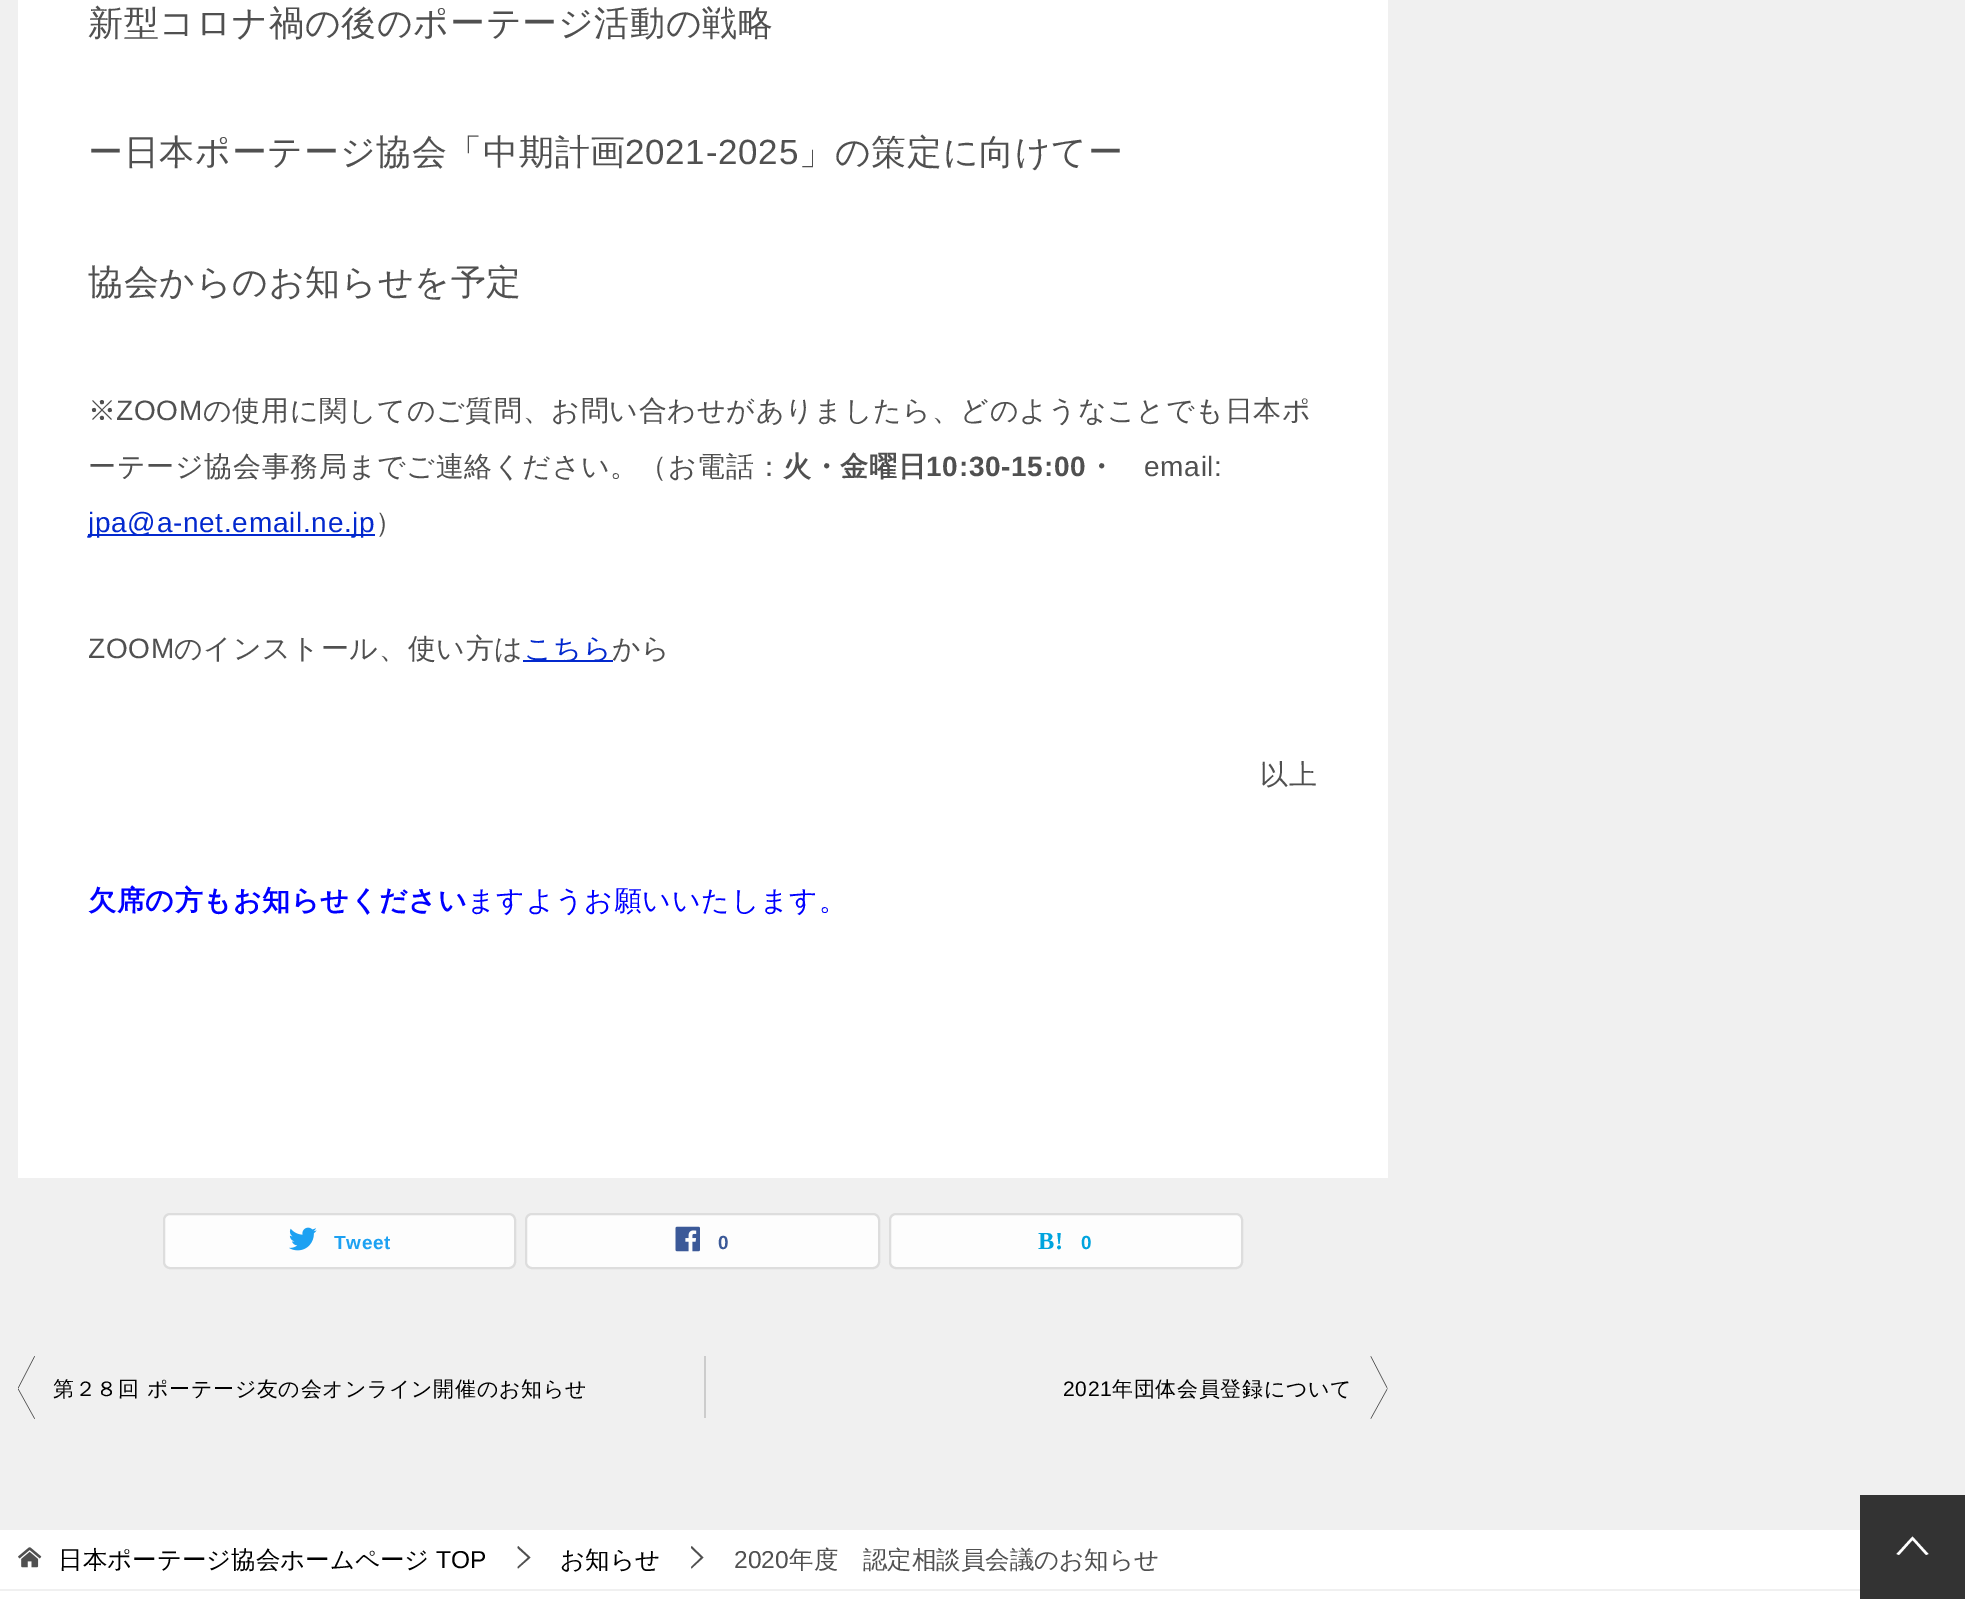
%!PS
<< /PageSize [1965 1599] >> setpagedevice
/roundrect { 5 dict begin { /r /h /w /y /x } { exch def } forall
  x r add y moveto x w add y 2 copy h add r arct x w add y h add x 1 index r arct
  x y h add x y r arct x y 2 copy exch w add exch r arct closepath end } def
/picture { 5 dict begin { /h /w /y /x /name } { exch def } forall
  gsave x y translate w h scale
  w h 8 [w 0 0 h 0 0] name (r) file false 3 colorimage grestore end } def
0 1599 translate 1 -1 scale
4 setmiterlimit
0.941 setgray
0 0 1965 1599 rectfill
1 setgray
18 0 1370 1178 rectfill
/WenQuanYiZenHei-Medium [35 0 0 -35 0 0] selectfont
0.314 setgray
88 35 moveto 0.7 0 (新型コロナ禍の後のポーテージ活動の戦略) ashow
88 164 moveto 0.7 0 (ー日本ポーテージ協会「中期計画) ashow
/LiberationSans-Regular [35 0 0 -35 0 0] selectfont
625 164 moveto 0.7 0 (2021-2025) ashow
/WenQuanYiZenHei-Medium [35 0 0 -35 0 0] selectfont
799 164 moveto 0.7 0 (」の策定に向けてー) ashow
88 294 moveto 0.7 0 (協会からのお知らせを予定) ashow
/WenQuanYiZenHei-Medium [28 0 0 -28 0 0] selectfont
88 420 moveto 0.7 0 (※) ashow
/LiberationSans-Regular [28 0 0 -28 0 0] selectfont
116 420 moveto 0.7 0 (ZOOM) ashow
/WenQuanYiZenHei-Medium [28 0 0 -28 0 0] selectfont
203 420 moveto 0.7 0 (の使用に関してのご質問、お問い合わせがありましたら、どのようなことでも日本ポ) ashow
88 476 moveto 0.7 0 (ーテージ協会事務局までご連絡ください。（お電話：) ashow
/WenQuanYiZenHei-Bold [28 0 0 -28 0 0] selectfont
783 476 moveto 0.7 0 (火・金曜日) ashow
/LiberationSans-Bold [28 0 0 -28 0 0] selectfont
926 476 moveto 0.7 0 (10:30-15:00) ashow
/WenQuanYiZenHei-Bold [28 0 0 -28 0 0] selectfont
1087 476 moveto 0.7 0 (・) ashow
/LiberationSans-Regular [28 0 0 -28 0 0] selectfont
1144 476 moveto 0.7 0 (email:) ashow
0.012 0.161 0.808 setrgbcolor
88 534 287 2 rectfill
88 532 moveto 0.7 0 (jpa@a-net.email.ne.jp) ashow
/WenQuanYiZenHei-Medium [28 0 0 -28 0 0] selectfont
0.314 setgray
375 532 moveto 0.7 0 (）) ashow
/LiberationSans-Regular [28 0 0 -28 0 0] selectfont
88 658 moveto 0.7 0 (ZOOM) ashow
/WenQuanYiZenHei-Medium [28 0 0 -28 0 0] selectfont
174 658 moveto 0.7 0 (のインストール、使い方は) ashow
0.012 0.161 0.808 setrgbcolor
523 660 90 2 rectfill
524 658 moveto 0.7 0 (こちら) ashow
0.314 setgray
612 658 moveto 0.7 0 (から) ashow
1260 784 moveto 0.7 0 (以上) ashow
/WenQuanYiZenHei-Bold [28 0 0 -28 0 0] selectfont
0 0 1 setrgbcolor
88 910 moveto 0.7 0 (欠席の方もお知らせください) ashow
/WenQuanYiZenHei-Medium [28 0 0 -28 0 0] selectfont
467 910 moveto 0.7 0 (ますようお願いいたします。) ashow
0.992 setgray
164 1214 351 54 6 roundrect gsave fill grestore
0.867 setgray
2 setlinewidth
stroke
(img1.rgb) 289 1227 28 24 picture
/LiberationSans-Bold [19 0 0 -19 0 0] selectfont
0.114 0.631 0.949 setrgbcolor
334 1249 moveto 0.7 0 (Tweet) ashow
0.992 setgray
526 1214 353 54 6 roundrect gsave fill grestore
0.867 setgray
stroke
(img2.rgb) 675 1226 25 26 picture
0.231 0.349 0.596 setrgbcolor
718 1249 moveto 0.7 0 (0) ashow
0.992 setgray
890 1214 352 54 6 roundrect gsave fill grestore
0.867 setgray
stroke
/LiberationSerif-Bold [24.5 0 0 -24.5 0 0] selectfont
0 0.643 0.871 setrgbcolor
1038 1249 moveto 0.7 0 (B!) ashow
/LiberationSans-Bold [19 0 0 -19 0 0] selectfont
1081 1249 moveto 0.7 0 (0) ashow
(img3.rgb) 18 1356 17 63 picture
/WenQuanYiZenHei-Medium [21 0 0 -21 0 0] selectfont
0 setgray
53 1396 moveto 0.7 0 (第２８回 ポーテージ友の会オンライン開催のお知らせ) ashow
0.8 setgray
704 1356 2 62 rectfill
(img4.rgb) 1370 1356 18 63 picture
/LiberationSans-Regular [21 0 0 -21 0 0] selectfont
0 setgray
1063 1396 moveto 0.7 0 (2021) ashow
/WenQuanYiZenHei-Medium [21 0 0 -21 0 0] selectfont
1112 1396 moveto 0.7 0 (年団体会員登録について) ashow
1 setgray
0 1530 1860 59 rectfill
(img5.rgb) 18 1547 24 21 picture
/WenQuanYiZenHei-Medium [24.5 0 0 -24.5 0 0] selectfont
0 setgray
58 1568 moveto (日本ポーテージ協会ホームページ) show
/LiberationSans-Regular [24.5 0 0 -24.5 0 0] selectfont
436 1568 moveto (TOP) show
0.314 setgray
newpath 518 1568.5 moveto 517.5 1567 lineto 528 1557.5 lineto 517.5 1548 lineto 518 1546 lineto 530.5 1557.5 lineto closepath fill
/WenQuanYiZenHei-Medium [24.5 0 0 -24.5 0 0] selectfont
0 setgray
560 1568 moveto (お知らせ) show
0.314 setgray
newpath 691.5 1568.5 moveto 691 1567 lineto 701 1557.5 lineto 691 1548 lineto 691.5 1546 lineto 703.5 1557.5 lineto closepath fill
/LiberationSans-Regular [24.5 0 0 -24.5 0 0] selectfont
734 1568 moveto (2020) show
/WenQuanYiZenHei-Medium [24.5 0 0 -24.5 0 0] selectfont
789 1568 moveto (年度　認定相談員会議のお知らせ) show
1 setgray
0 1591 1860 8 rectfill
0.2 setgray
1860 1495 105 104 rectfill
1 setgray
newpath 1912.5 1536.5 moveto 1928.5 1554 lineto 1926 1555 lineto 1912.5 1540 lineto 1899 1555 lineto 1896.5 1554 lineto closepath fill
showpage
